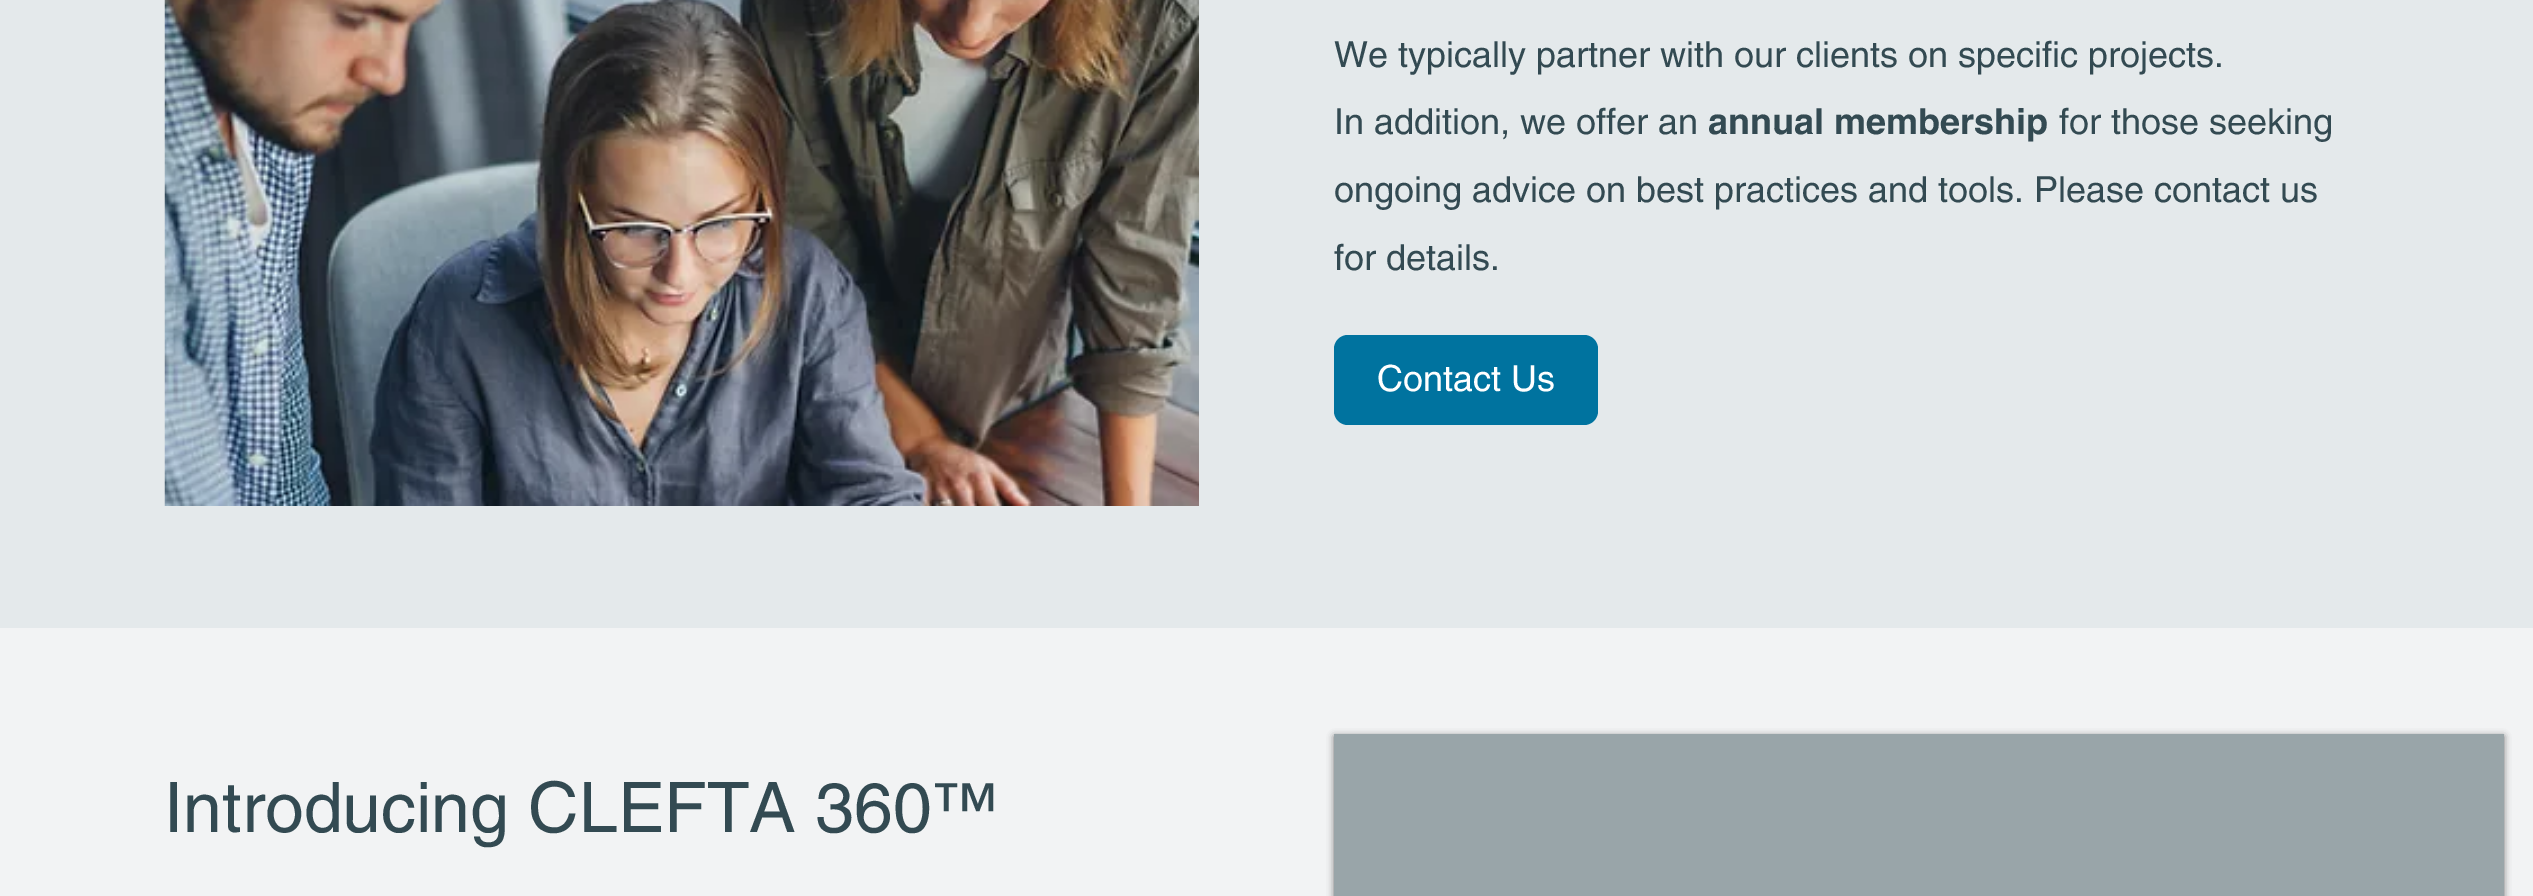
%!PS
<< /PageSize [2533 896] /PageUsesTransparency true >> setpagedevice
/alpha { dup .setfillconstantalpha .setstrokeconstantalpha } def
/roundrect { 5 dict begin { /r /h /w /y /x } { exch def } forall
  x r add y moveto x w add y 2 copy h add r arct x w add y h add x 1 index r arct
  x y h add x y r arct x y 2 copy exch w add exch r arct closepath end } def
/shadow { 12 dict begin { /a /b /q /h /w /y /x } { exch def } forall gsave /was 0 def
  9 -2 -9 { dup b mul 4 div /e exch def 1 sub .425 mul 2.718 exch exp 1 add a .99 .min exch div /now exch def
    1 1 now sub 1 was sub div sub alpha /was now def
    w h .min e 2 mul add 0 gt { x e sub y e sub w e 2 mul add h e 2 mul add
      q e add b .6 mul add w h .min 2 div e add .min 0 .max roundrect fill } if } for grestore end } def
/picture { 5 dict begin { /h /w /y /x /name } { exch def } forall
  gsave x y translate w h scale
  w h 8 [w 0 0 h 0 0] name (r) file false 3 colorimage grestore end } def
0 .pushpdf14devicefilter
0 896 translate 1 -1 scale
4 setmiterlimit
0.894 0.914 0.922 setrgbcolor
0 0 2533 896 rectfill
(img1.rgb) 164 0 1035 506 picture
/helvetica-Regular [36 0 0 -36 0 0] selectfont
0.2 0.29 0.322 setrgbcolor
1334 67 moveto (We typically partner with our clients on specific projects.) show
1334 134 moveto (In addition, we offer an) show
/helvetica-Bold [36 0 0 -36 0 0] selectfont
1708 134 moveto (annual membership) show
/helvetica-Regular [36 0 0 -36 0 0] selectfont
2059 134 moveto (for those seeking) show
1334 202 moveto (ongoing advice on best practices and tools. Please contact us) show
1334 270 moveto (for details.) show
0 0.451 0.624 setrgbcolor
1334 335 264 90 14 roundrect fill
1 setgray
1377 391 moveto (Contact Us) show
0.949 0.953 0.957 setrgbcolor
0 628 2533 268 rectfill
/helvetica-Regular [69.75 0 0 -69.75 0 0] selectfont
0.2 0.29 0.322 setrgbcolor
164 832 moveto (Introducing CLEFTA 360) show
/helvetica-Regular [68 0 0 -68 0 0] selectfont
932 832 moveto (™) show
0 setgray
1334 736 1170 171 0 3.5 0.5 shadow
0.6 0.647 0.663 setrgbcolor
1334 734 1170 162 rectfill
.poppdf14devicefilter showpage
